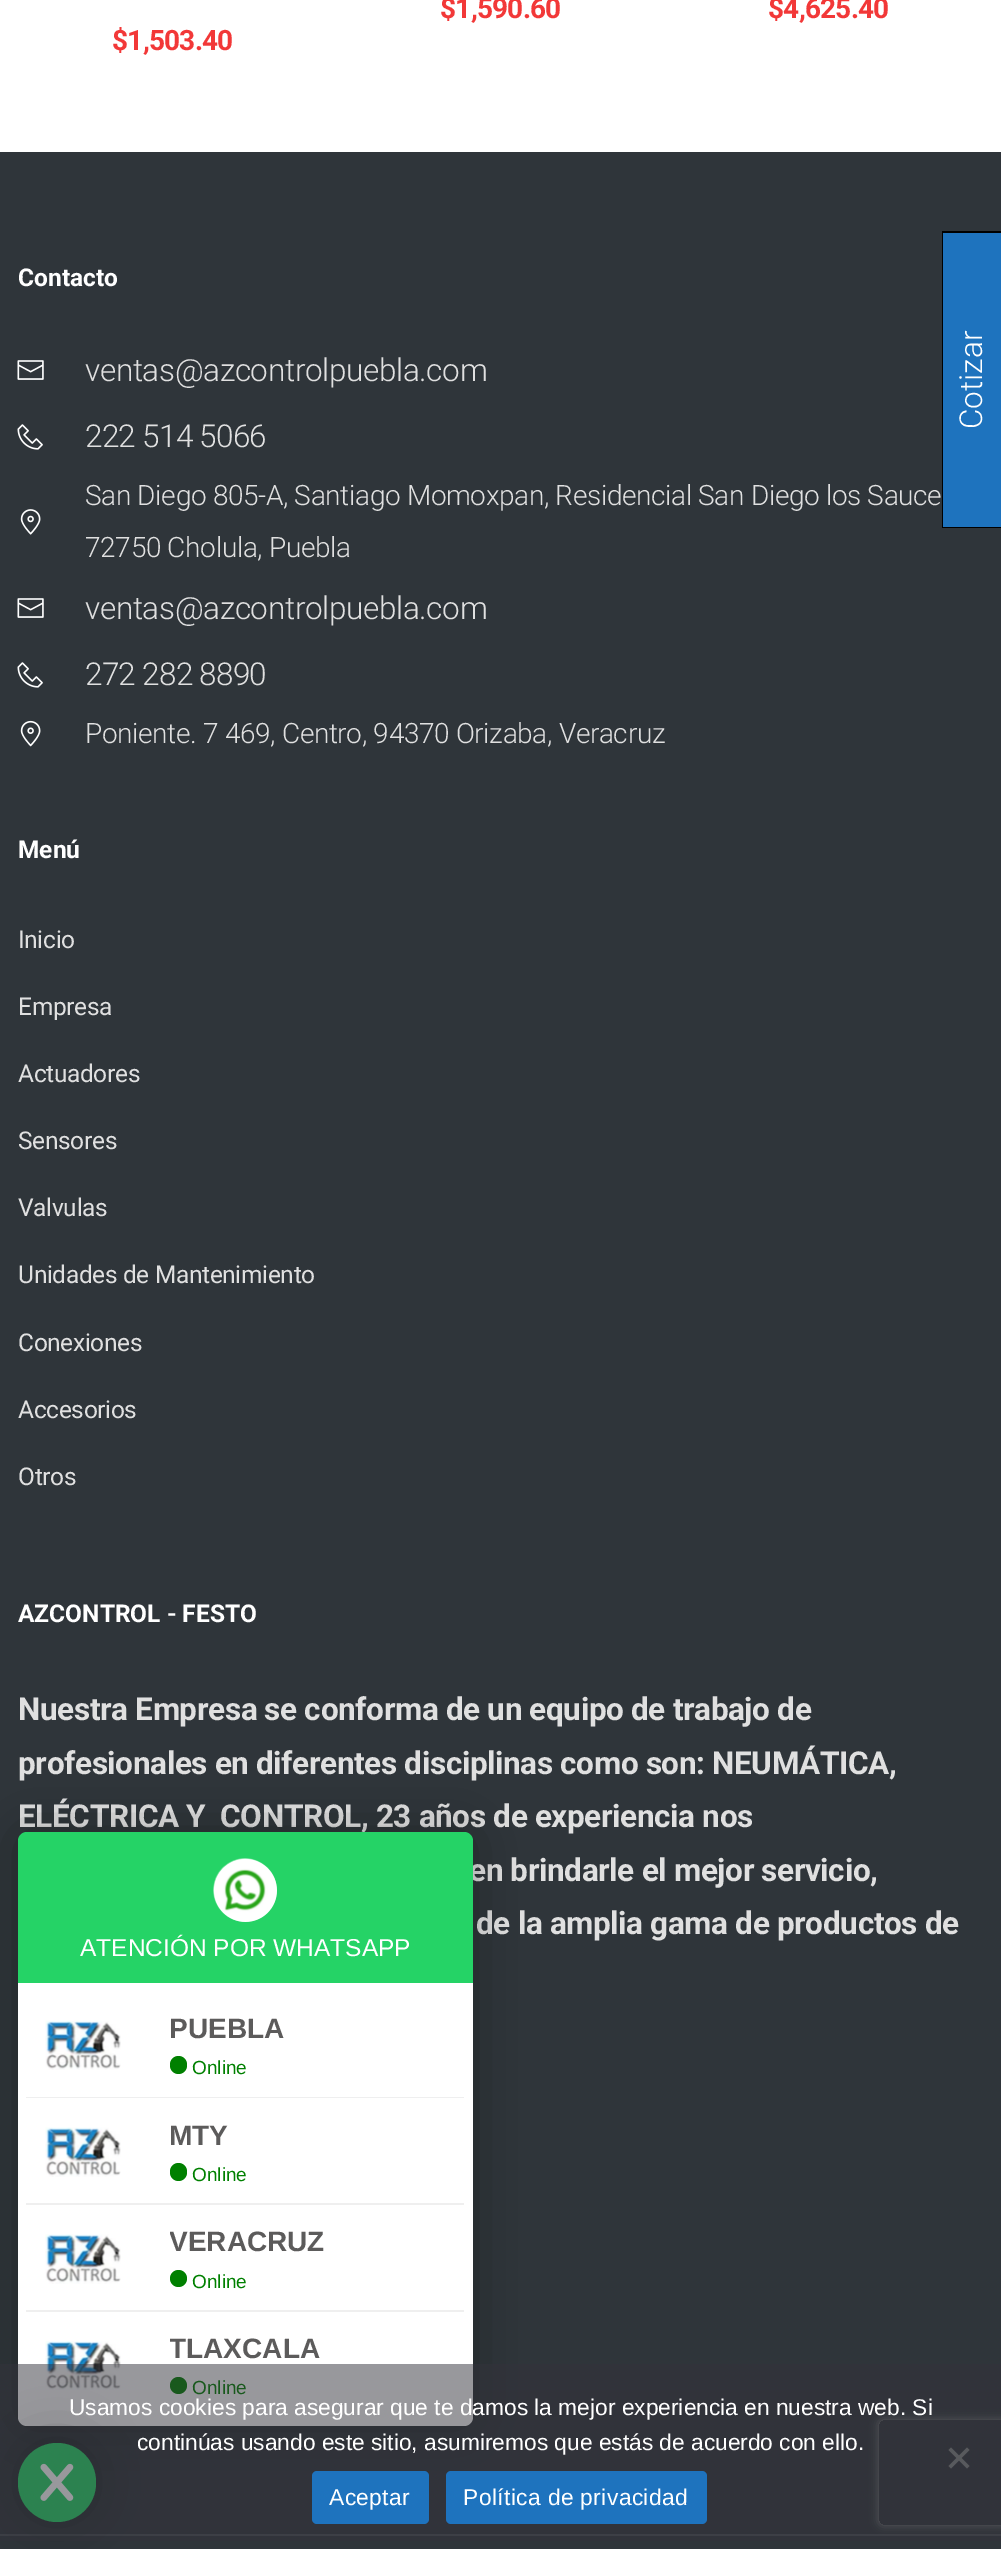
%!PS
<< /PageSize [1001 2549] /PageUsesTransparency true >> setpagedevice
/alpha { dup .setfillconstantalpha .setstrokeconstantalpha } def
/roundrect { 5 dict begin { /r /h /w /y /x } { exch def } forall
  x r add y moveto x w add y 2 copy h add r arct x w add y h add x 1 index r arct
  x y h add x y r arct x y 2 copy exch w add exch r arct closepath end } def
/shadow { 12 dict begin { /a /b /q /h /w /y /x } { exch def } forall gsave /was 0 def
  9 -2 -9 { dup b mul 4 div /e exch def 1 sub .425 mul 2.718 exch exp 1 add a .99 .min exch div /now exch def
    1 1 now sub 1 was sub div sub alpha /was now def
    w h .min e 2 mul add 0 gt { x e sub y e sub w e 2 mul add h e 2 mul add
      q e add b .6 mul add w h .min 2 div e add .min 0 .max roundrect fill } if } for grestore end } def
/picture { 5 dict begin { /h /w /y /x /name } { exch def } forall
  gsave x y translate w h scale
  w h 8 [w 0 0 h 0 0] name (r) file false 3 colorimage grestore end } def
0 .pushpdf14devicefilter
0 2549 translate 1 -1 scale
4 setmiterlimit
1 setgray
0 0 1001 2549 rectfill
/Roboto-Bold [28 0 0 -28 0 0] selectfont
0.949 0.22 0.22 setrgbcolor
440 18 moveto -0.75 0 ($1,590.60) ashow
768 18 moveto -0.75 0 ($4,625.40) ashow
112 50 moveto -0.75 0 ($1,503.40) ashow
0.184 0.208 0.227 setrgbcolor
0 152 1001 2382 rectfill
/Roboto-Bold [24.5 0 0 -24.5 0 0] selectfont
1 setgray
18 286 moveto (Contacto) show
(img1.rgb) 17 360 27 20 picture
/Roboto-Light [31.5 0 0 -31.5 0 0] selectfont
0.878 setgray
85 381 moveto -0.35 0 (ventas@azcontrolpuebla.com) ashow
(img2.rgb) 17 424 26 26 picture
85 447 moveto -0.75 0 (222 514 5066) ashow
(img3.rgb) 20 509 21 26 picture
/Roboto-Light [28 0 0 -28 0 0] selectfont
85 505 moveto -0.35 0 (San Diego 805-A, Santiago Momoxpan, Residencial San Diego los Sauce) ashow
85 557 moveto -0.35 0 (72750 Cholula, Puebla) ashow
(img1.rgb) 17 598 27 20 picture
/Roboto-Light [31.5 0 0 -31.5 0 0] selectfont
85 619 moveto -0.35 0 (ventas@azcontrolpuebla.com) ashow
(img2.rgb) 17 662 26 26 picture
85 685 moveto -0.75 0 (272 282 8890) ashow
(img4.rgb) 20 720 21 27 picture
/Roboto-Light [28 0 0 -28 0 0] selectfont
85 743 moveto -0.35 0 (Poniente. 7 469, Centro, 94370 Orizaba, Veracruz) ashow
/Roboto-Bold [24.5 0 0 -24.5 0 0] selectfont
1 setgray
18 858 moveto (Menú) show
/Roboto-Regular [24.5 0 0 -24.5 0 0] selectfont
0.878 setgray
18 948 moveto -0.35 0 (Inicio) ashow
18 1015 moveto -0.35 0 (Empresa) ashow
18 1082 moveto -0.35 0 (Actuadores) ashow
18 1149 moveto -0.35 0 (Sensores) ashow
18 1216 moveto -0.35 0 (Valvulas) ashow
18 1283 moveto -0.35 0 (Unidades de Mantenimiento) ashow
18 1351 moveto -0.35 0 (Conexiones) ashow
18 1418 moveto -0.35 0 (Accesorios) ashow
18 1485 moveto -0.35 0 (Otros) ashow
/Roboto-Bold [24.5 0 0 -24.5 0 0] selectfont
1 setgray
18 1622 moveto (AZCONTROL - FESTO) show
/Roboto-Bold [31.5 0 0 -31.5 0 0] selectfont
0.878 setgray
18 1720 moveto -0.35 0 (Nuestra Empresa se conforma de un equipo de trabajo de) ashow
18 1774 moveto -0.35 0 (profesionales en diferentes disciplinas como son: NEUMÁTICA,) ashow
18 1827 moveto -0.35 0 (ELÉCTRICA Y  CONTROL, 23 años de experiencia nos) ashow
469 1881 moveto -0.35 0 (en brindarle el mejor servicio,) ashow
476 1934 moveto -0.35 0 (de la amplia gama de productos de) ashow
0.184 0.208 0.227 setrgbcolor
0 2536 1001 13 rectfill
0.282 0.302 0.322 setrgbcolor
0 2534 1001 2 rectfill
0.118 0.451 0.745 setrgbcolor
943 233 58 294 rectfill
0 setgray
942 231 1 297 rectfill
942 231 59 2 rectfill
942 527 59 1 rectfill
/Roboto-Light [31.5 0 0 -31.5 0 0] selectfont
1 setgray
gsave 982 429 translate -90 rotate 0 0 moveto (Cotizar) show grestore
0 setgray
18 1832 455 594 9 26 0.3 shadow
0.145 0.827 0.4 setrgbcolor
newpath 27 1832 moveto 464 1832 lineto 469 1832 473 1836 473 1841 curveto 473 1983 lineto 18 1983 lineto 18 1841 lineto 18 1836 22 1832 27 1832 curveto closepath fill
1 setgray
newpath 245.5 1890.5 31.5 0 360 arc closepath fill
(img5.rgb) 213 1858 64 64 picture
/LiberationSans-Regular [24.5 0 0 -24.5 0 0] selectfont
80 1956 moveto (ATENCIÓN POR WHATSAPP) show
newpath 18 1983 moveto 473 1983 lineto 473 2417 lineto 473 2422 469 2426 464 2426 curveto 27 2426 lineto 22 2426 18 2422 18 2417 curveto closepath fill
0.937 setgray
26 2097 438 1 rectfill
(img6.rgb) 45 2020 76 50 picture
/LiberationSans-Bold [28 0 0 -28 0 0] selectfont
0.361 0.357 0.357 setrgbcolor
169 2038 moveto (PUEBLA) show
0 0.502 0 setrgbcolor
170 2056 17 18 8.5 roundrect fill
/LiberationSans-Regular [19 0 0 -19 0 0] selectfont
192 2074 moveto (Online) show
0.937 setgray
26 2203 438 2 rectfill
(img7.rgb) 45 2127 76 50 picture
/LiberationSans-Bold [28 0 0 -28 0 0] selectfont
0.361 0.357 0.357 setrgbcolor
169 2145 moveto (MTY) show
0 0.502 0 setrgbcolor
170 2163 17 18 8.5 roundrect fill
/LiberationSans-Regular [19 0 0 -19 0 0] selectfont
192 2181 moveto (Online) show
0.937 setgray
26 2310 438 2 rectfill
(img8.rgb) 45 2234 76 50 picture
gsave
170 2219 280 47 rectclip
/LiberationSans-Bold [28 0 0 -28 0 0] selectfont
0.361 0.357 0.357 setrgbcolor
169 2251 moveto (VERACRUZ) show
grestore
0 0.502 0 setrgbcolor
newpath 178.5 2278.5 8.5 0 360 arc closepath fill
192 2288 moveto (Online) show
(img9.rgb) 45 2341 76 49 picture
gsave
170 2326 280 47 rectclip
/LiberationSans-Bold [28 0 0 -28 0 0] selectfont
0.361 0.357 0.357 setrgbcolor
169 2358 moveto (TLAXCALA) show
grestore
newpath 178.5 2385.5 8.5 0 360 arc closepath fill
192 2394 moveto (Online) show
0 setgray
18 2443 78 79 39 26 0.3 shadow
0.145 0.827 0.4 setrgbcolor
18 2443 78 79 39 roundrect fill
(img10.rgb) 40 2463 34 38 picture
gsave
newpath 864 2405 moveto 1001 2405 lineto 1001 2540 lineto 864 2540 lineto closepath 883 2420 moveto 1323 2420 lineto 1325 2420 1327 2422 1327 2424 curveto 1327 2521 lineto 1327 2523 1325 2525 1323 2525 curveto 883 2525 lineto 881 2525 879 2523 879 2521 curveto 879 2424 lineto 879 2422 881 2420 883 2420 curveto closepath eoclip newpath
0.502 setgray
879 2420 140 105 4 4.5 1 shadow
grestore
0.5 alpha
0.196 0.196 0.227 setrgbcolor
0 2364 1001 177 rectfill
/LiberationSans-Regular [22.75 0 0 -22.75 0 0] selectfont
1 alpha
1 setgray
69 2415 moveto (Usamos cookies para asegurar que te damos la mejor experiencia en nuestra web. Si) show
137 2450 moveto (continúas usando este sitio, asumiremos que estás de acuerdo con ello.) show
0.345 0.353 0.365 setrgbcolor
newpath 967 2447.5 moveto 969.5 2450 lineto 951 2468.5 lineto 948.5 2466 lineto closepath fill
newpath 948.5 2450 moveto 951 2447.5 lineto 969.5 2466 lineto 967 2468.5 lineto closepath fill
0.118 0.451 0.745 setrgbcolor
312 2471 117 53 5 roundrect fill
1 setgray
329 2505 moveto 0.4 0 (Aceptar) ashow
0.118 0.451 0.745 setrgbcolor
446 2471 261 53 5 roundrect fill
1 setgray
463 2505 moveto 0.4 0 (Política de privacidad) ashow
.poppdf14devicefilter showpage
